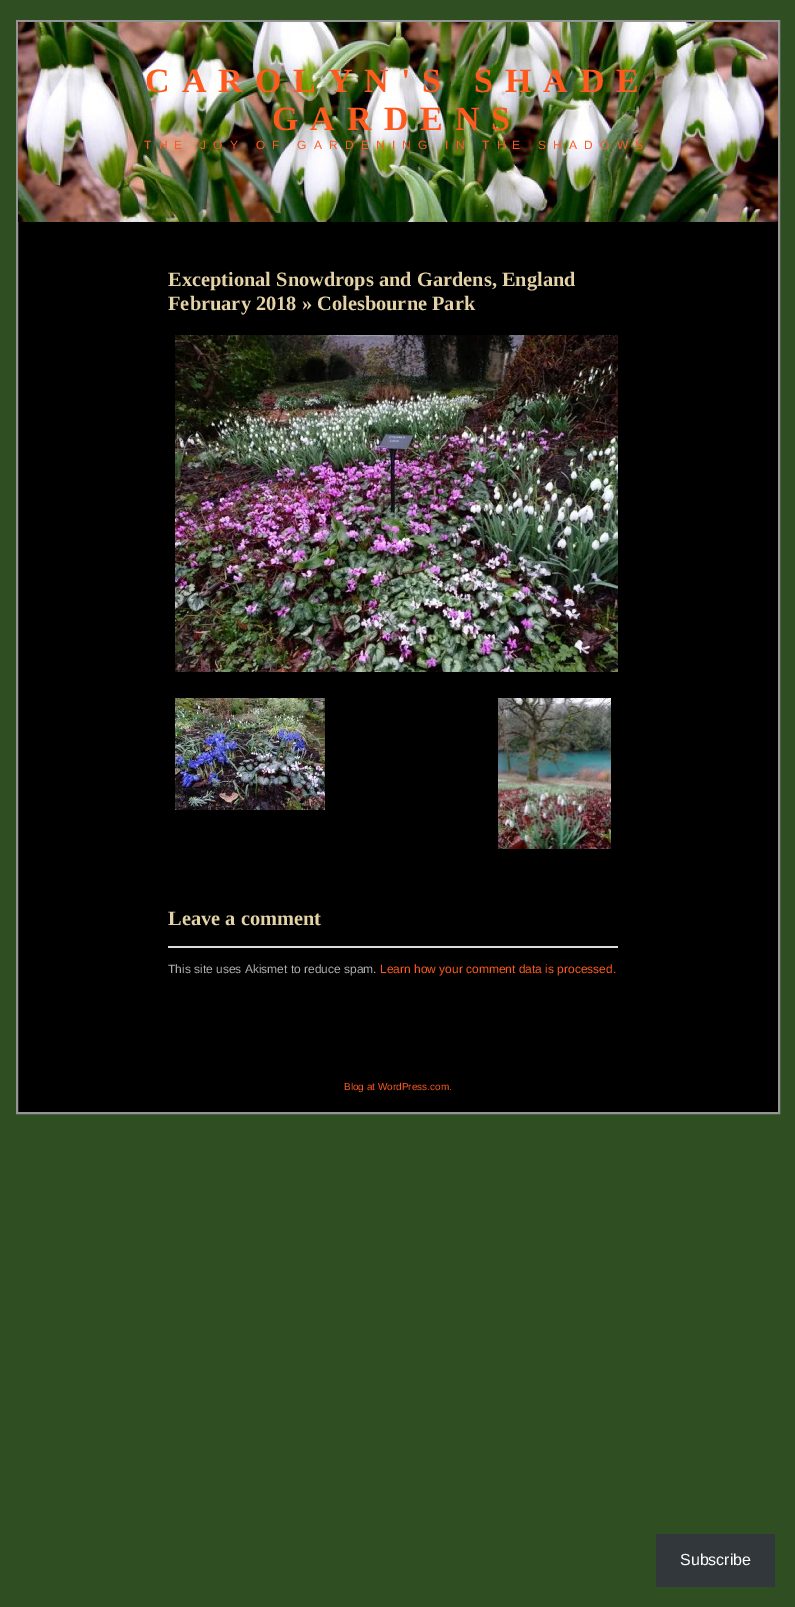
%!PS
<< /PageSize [795 1607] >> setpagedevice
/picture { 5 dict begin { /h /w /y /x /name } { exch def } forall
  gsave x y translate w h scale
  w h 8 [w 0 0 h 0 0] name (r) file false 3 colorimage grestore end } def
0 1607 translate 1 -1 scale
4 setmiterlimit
0.184 0.31 0.133 setrgbcolor
0 0 795 1607 rectfill
0 setgray
18 222 760 890 rectfill
0.584 0.584 0.588 setrgbcolor
2 setlinewidth
17 21 762 1092 rectstroke
(img1.rgb) 18 22 760 200 picture
/LiberationSerif-Bold [34 0 0 -34 0 0] selectfont
0.992 0.353 0.118 setrgbcolor
145 92 moveto 12 0 (CAROLYN'S SHADE) ashow
272 130 moveto 12 0 (GARDENS) ashow
/LiberationSans-Regular [12 0 0 -12 0 0] selectfont
144 149 moveto 7.2 0 (THE JOY OF GARDENING IN THE SHADOWS) ashow
/LiberationSerif-Bold [20.4 0 0 -20.4 0 0] selectfont
0.894 0.827 0.651 setrgbcolor
168 286 moveto (Exceptional Snowdrops and Gardens, England) show
168 310 moveto (February 2018 » Colesbourne Park) show
(img2.rgb) 175 335 443 337 picture
(img3.rgb) 175 698 150 112 picture
(img4.rgb) 498 698 113 151 picture
168 925 moveto (Leave a comment) show
0.863 0.863 0.871 setrgbcolor
168 946 450 2 rectfill
/LiberationSans-Regular [12 0 0 -12 0 0] selectfont
0.69 setgray
168 973 moveto (This site uses Akismet to reduce spam.) show
0.992 0.353 0.118 setrgbcolor
380 973 moveto (Learn how your comment data is processed.) show
/LiberationSans-Regular [10 0 0 -10 0 0] selectfont
344 1090 moveto (Blog at WordPress.com.) show
0.196 0.216 0.235 setrgbcolor
656 1534 119 53 rectfill
/LiberationSans-Regular [16 0 0 -16 0 0] selectfont
1 setgray
680 1565 moveto (Subscribe) show
showpage
